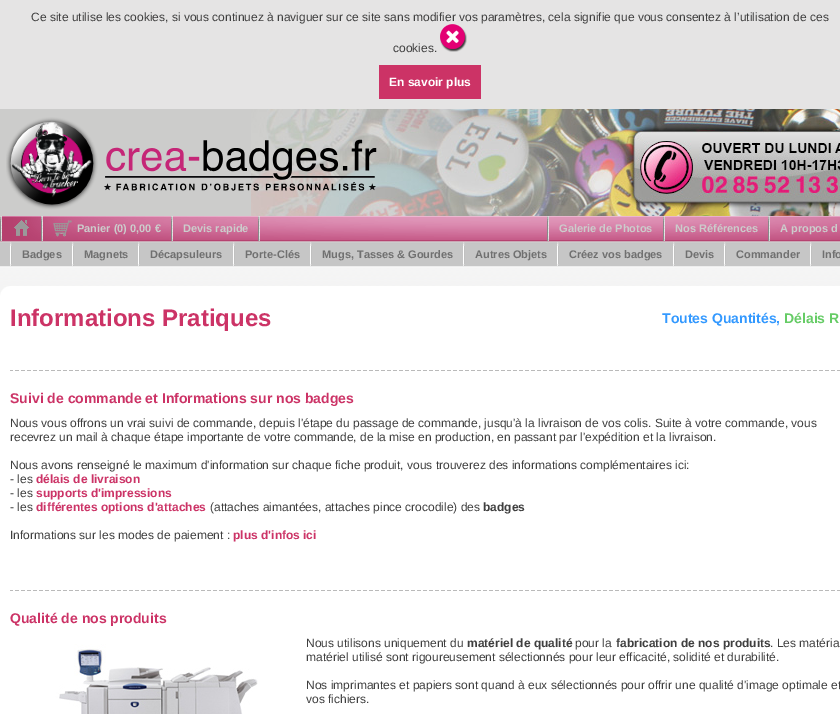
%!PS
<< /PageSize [840 714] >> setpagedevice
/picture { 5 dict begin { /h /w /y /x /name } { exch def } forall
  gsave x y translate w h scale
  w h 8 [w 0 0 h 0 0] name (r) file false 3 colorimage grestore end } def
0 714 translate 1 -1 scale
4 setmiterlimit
1 setgray
0 0 840 714 rectfill
0.898 0.894 0.894 setrgbcolor
0 0 840 109 rectfill
/LiberationSans-Regular [12 0 0 -12 0 0] selectfont
0.247 setgray
31 21 moveto (Ce site utilise les cookies, si vous continuez à naviguer sur ce site sans modifier vos paramètres, cela signifie que vous consentez à l’utilisation de ces) show
393 52 moveto (cookies.) show
(img1.rgb) 440 24 27 28 picture
0.8 0.2 0.4 setrgbcolor
379 65 102 34 rectfill
/LiberationSans-Bold [12 0 0 -12 0 0] selectfont
1 setgray
389 86 moveto (En savoir plus) show
(img2.rgb) 0 109 840 187 picture
(img4.rgb) 251 109 589 107 picture
(img3.rgb) 6 117 371 93 picture
(img5.rgb) 2 216 838 24 picture
(img6.rgb) 0 216 2 25 picture
(img7.rgb) 14 220 15 16 picture
(img6.rgb) 41 216 2 25 picture
(img8.rgb) 53 220 19 17 picture
/LiberationSans-Bold [11 0 0 -11 0 0] selectfont
0.8 setgray
77 232 moveto (Panier \(0\) 0,00 €) show
(img6.rgb) 171 216 2 25 picture
183 232 moveto (Devis rapide) show
(img6.rgb) 258 216 2 25 picture
(img6.rgb) 547 216 2 25 picture
559 232 moveto (Galerie de Photos) show
(img6.rgb) 663 216 2 25 picture
675 232 moveto (Nos Références) show
(img6.rgb) 768 216 2 25 picture
780 232 moveto (A propos d) show
(img9.rgb) 10 242 2 24 picture
0.439 setgray
22 258 moveto (Badges) show
(img9.rgb) 72 242 2 24 picture
84 258 moveto (Magnets) show
(img9.rgb) 138 242 2 24 picture
150 258 moveto (Décapsuleurs) show
(img9.rgb) 233 242 2 24 picture
245 258 moveto (Porte-Clés) show
(img9.rgb) 310 242 2 24 picture
322 258 moveto (Mugs, Tasses & Gourdes) show
(img9.rgb) 463 242 2 24 picture
475 258 moveto (Autres Objets) show
(img9.rgb) 557 242 2 24 picture
569 258 moveto (Créez vos badges) show
(img9.rgb) 673 242 2 24 picture
685 258 moveto (Devis) show
(img9.rgb) 724 242 2 24 picture
736 258 moveto (Commander) show
(img9.rgb) 810 242 2 24 picture
822 258 moveto (Info) show
(img10.rgb) 0 286 25 20 picture
1 setgray
25 286 815 10 rectfill
/LiberationSans-Bold [24 0 0 -24 0 0] selectfont
0.8 0.2 0.4 setrgbcolor
10 326 moveto (Informations Pratiques) show
/LiberationSans-Bold [14 0 0 -14 0 0] selectfont
0.2 0.6 1 setrgbcolor
662 323 moveto (Toutes Quantités,) show
0.4 0.8 0.4 setrgbcolor
784 323 moveto (Délais R) show
(img11.rgb) 10 370 830 1 picture
0.8 0.2 0.4 setrgbcolor
10 403 moveto (Suivi de commande et Informations sur nos badges) show
/LiberationSans-Regular [12 0 0 -12 0 0] selectfont
0.247 setgray
10 427 moveto (Nous vous offrons un vrai suivi de commande, depuis l'étape du passage de commande, jusqu'à la livraison de vos colis. Suite à votre commande, vous) show
10 441 moveto (recevrez un mail à chaque étape importante de votre commande, de la mise en production, en passant par l'expédition et la livraison.) show
10 469 moveto (Nous avons renseigné le maximum d'information sur chaque fiche produit, vous trouverez des informations complémentaires ici:) show
10 483 moveto (- les) show
/LiberationSans-Bold [12 0 0 -12 0 0] selectfont
0.8 0.2 0.4 setrgbcolor
36 483 moveto (délais de livraison) show
/LiberationSans-Regular [12 0 0 -12 0 0] selectfont
0.247 setgray
10 497 moveto (- les) show
/LiberationSans-Bold [12 0 0 -12 0 0] selectfont
0.8 0.2 0.4 setrgbcolor
36 497 moveto (supports d'impressions) show
/LiberationSans-Regular [12 0 0 -12 0 0] selectfont
0.247 setgray
10 511 moveto (- les) show
/LiberationSans-Bold [12 0 0 -12 0 0] selectfont
0.8 0.2 0.4 setrgbcolor
36 511 moveto (différentes options d'attaches) show
/LiberationSans-Regular [12 0 0 -12 0 0] selectfont
0.247 setgray
210 511 moveto (\(attaches aimantées, attaches pince crocodile\) des) show
/LiberationSans-Bold [12 0 0 -12 0 0] selectfont
483 511 moveto (badges) show
/LiberationSans-Regular [12 0 0 -12 0 0] selectfont
10 539 moveto (Informations sur les modes de paiement :) show
/LiberationSans-Bold [12 0 0 -12 0 0] selectfont
0.8 0.2 0.4 setrgbcolor
233 539 moveto (plus d'infos ici) show
(img11.rgb) 10 590 830 1 picture
/LiberationSans-Bold [14 0 0 -14 0 0] selectfont
10 623 moveto (Qualité de nos produits) show
(img12.rgb) 10 636 296 78 picture
/LiberationSans-Regular [12 0 0 -12 0 0] selectfont
0.247 setgray
306 647 moveto (Nous utilisons uniquement du) show
/LiberationSans-Bold [12 0 0 -12 0 0] selectfont
467 647 moveto (matériel de qualité) show
/LiberationSans-Regular [12 0 0 -12 0 0] selectfont
575 647 moveto (pour la) show
/LiberationSans-Bold [12 0 0 -12 0 0] selectfont
616 647 moveto (fabrication de nos produits) show
/LiberationSans-Regular [12 0 0 -12 0 0] selectfont
770 647 moveto (. Les matéria) show
306 661 moveto (matériel utilisé sont rigoureusement sélectionnés pour leur efficacité, solidité et durabilité.) show
306 689 moveto (Nos imprimantes et papiers sont quand à eux sélectionnés pour offrir une qualité d'image optimale et) show
306 703 moveto (vos fichiers.) show
showpage
